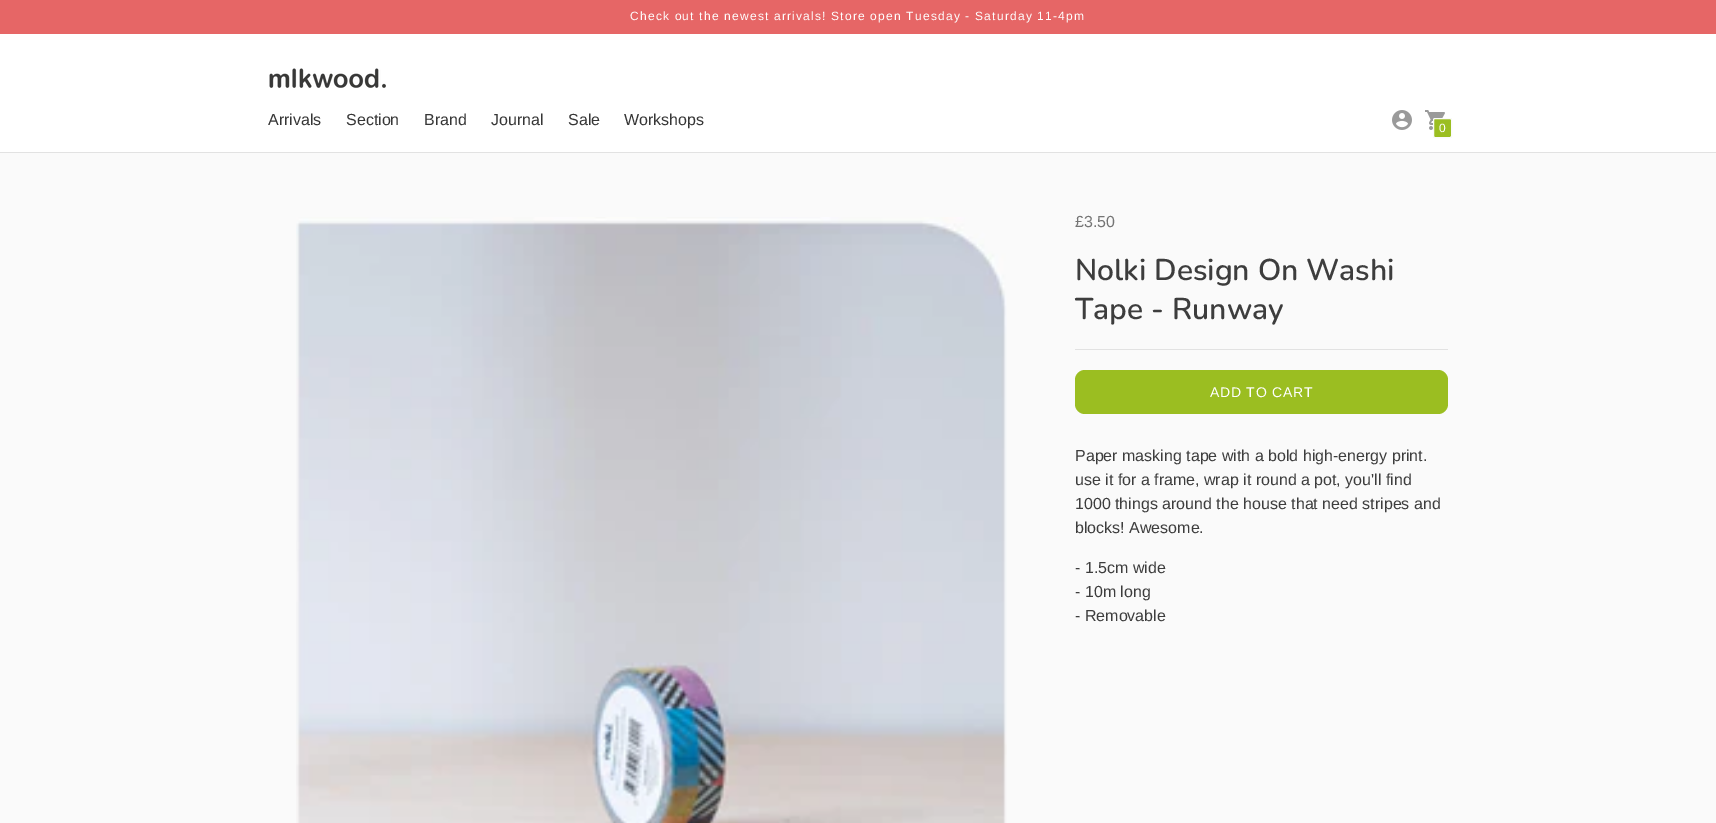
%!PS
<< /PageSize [1716 823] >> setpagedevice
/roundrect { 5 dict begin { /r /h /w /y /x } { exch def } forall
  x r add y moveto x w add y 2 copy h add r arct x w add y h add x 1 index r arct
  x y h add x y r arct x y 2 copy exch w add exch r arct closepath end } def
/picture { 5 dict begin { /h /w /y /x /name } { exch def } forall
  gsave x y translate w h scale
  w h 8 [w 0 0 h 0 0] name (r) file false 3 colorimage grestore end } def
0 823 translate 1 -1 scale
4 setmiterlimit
0.98 setgray
0 0 1716 823 rectfill
0.902 0.4 0.4 setrgbcolor
0 0 1716 34 rectfill
/Arimo-Regular [12 0 0 -12 0 0] selectfont
1 setgray
630 20 moveto 1.2 0 (Check out the newest arrivals! Store open Tuesday - Saturday 11-4pm) ashow
0 34 1716 118 rectfill
0.886 setgray
0 152 1716 1 rectfill
(img1.rgb) 269 68 117 20 picture
/Arimo-Regular [16 0 0 -16 0 0] selectfont
0.212 setgray
268 125 moveto (Arrivals) show
346 125 moveto (Section) show
424 125 moveto (Brand) show
491 125 moveto (Journal) show
568 125 moveto (Sale) show
624 125 moveto (Workshops) show
(img2.rgb) 1392 110 20 20 picture
(img3.rgb) 1425 110 20 20 picture
0.608 0.745 0.129 setrgbcolor
1433.5 118.5 18 19 1.5 roundrect gsave fill grestore
0.98 setgray
stroke
/Arimo-Regular [12 0 0 -12 0 0] selectfont
1 setgray
1439 132 moveto (0) show
(img4.rgb) 296 217 711 606 picture
0.886 setgray
1075 349 373 1 rectfill
/Arimo-Regular [16 0 0 -16 0 0] selectfont
0.459 setgray
1075 227 moveto (£3.50) show
/Nunito-SemiBold [30 0 0 -30 0 0] selectfont
0.239 setgray
1075 280 moveto (Nolki Design On Washi) show
1075 319 moveto (Tape - Runway) show
0.608 0.745 0.129 setrgbcolor
1075 370 373 44 10 roundrect fill
/Arimo-Regular [14 0 0 -14 0 0] selectfont
1 setgray
1210 397 moveto 0.75 0 (ADD TO CART) ashow
/Arimo-Regular [16 0 0 -16 0 0] selectfont
0.239 setgray
1075 461 moveto (Paper masking tape with a bold high-energy print.) show
1075 485 moveto (use it for a frame, wrap it round a pot, you'll find) show
1075 509 moveto (1000 things around the house that need stripes and) show
1075 533 moveto (blocks! Awesome.) show
1075 573 moveto (- 1.5cm wide) show
1075 597 moveto (- 10m long) show
1075 621 moveto (- Removable) show
showpage
